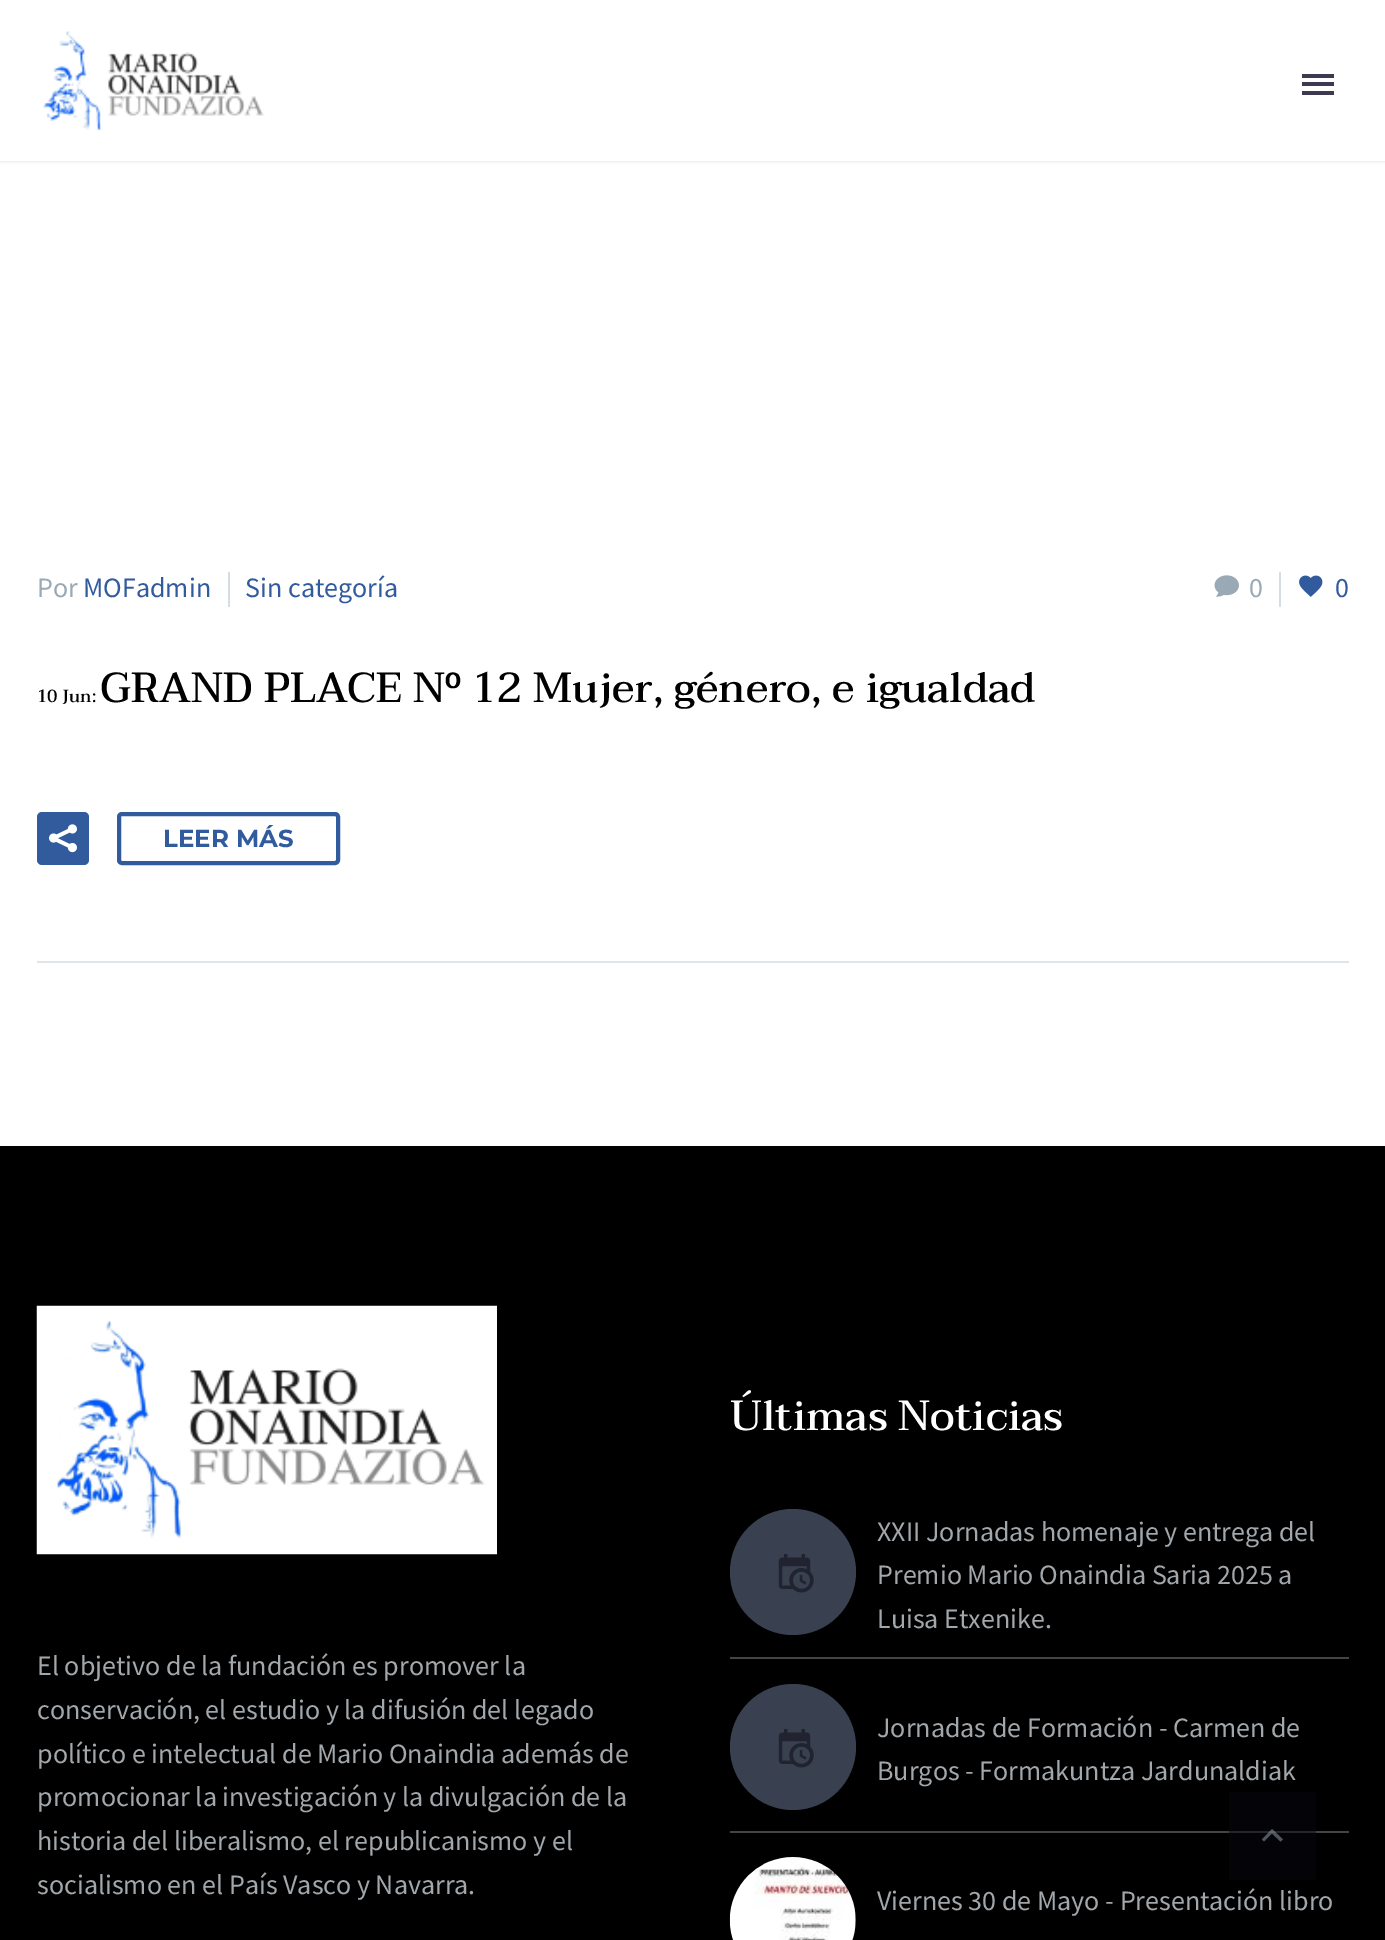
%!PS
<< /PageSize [1385 1940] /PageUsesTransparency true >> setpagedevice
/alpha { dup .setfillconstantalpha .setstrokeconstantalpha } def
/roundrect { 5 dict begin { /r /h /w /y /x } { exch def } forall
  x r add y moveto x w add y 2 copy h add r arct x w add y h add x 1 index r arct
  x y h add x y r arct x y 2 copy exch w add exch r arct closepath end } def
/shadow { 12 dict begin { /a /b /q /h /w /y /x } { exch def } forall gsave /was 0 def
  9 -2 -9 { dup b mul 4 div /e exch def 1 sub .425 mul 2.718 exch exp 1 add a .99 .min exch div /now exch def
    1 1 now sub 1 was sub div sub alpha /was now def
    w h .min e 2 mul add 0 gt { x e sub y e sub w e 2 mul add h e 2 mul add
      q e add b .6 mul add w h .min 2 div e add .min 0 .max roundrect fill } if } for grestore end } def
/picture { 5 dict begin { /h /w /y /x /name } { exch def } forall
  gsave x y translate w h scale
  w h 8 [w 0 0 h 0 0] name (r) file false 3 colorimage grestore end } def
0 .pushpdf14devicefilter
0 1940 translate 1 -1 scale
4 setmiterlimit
1 setgray
0 0 1385 1940 rectfill
gsave
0 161 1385 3 rectclip
0.22 0.271 0.329 setrgbcolor
0 0 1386 161 0 2 0.2 shadow
grestore
(img1.rgb) 43 31 222 100 picture
0.235 0.224 0.314 setrgbcolor
1302 74 32 4 rectfill
1302 82 32 4 rectfill
1302 91 32 4 rectfill
0.875 0.898 0.91 setrgbcolor
37 961 1312 2 rectfill
/SourceSansPro-Regular [28 0 0 -28 0 0] selectfont
0.6 0.663 0.71 setrgbcolor
37 597 moveto (Por) show
0.192 0.357 0.616 setrgbcolor
83 597 moveto (MOFadmin) show
0.831 0.871 0.882 setrgbcolor
228 572 2 35 rectfill
0.192 0.357 0.616 setrgbcolor
245 597 moveto (Sin categoría) show
(img2.rgb) 1214 575 25 22 picture
0.6 0.663 0.71 setrgbcolor
1249 597 moveto (0) show
0.831 0.871 0.882 setrgbcolor
1279 572 2 35 rectfill
(img3.rgb) 1299 575 24 22 picture
0.192 0.357 0.616 setrgbcolor
1335 597 moveto (0) show
/Taviraj-Medium [17.5 0 0 -17.5 0 0] selectfont
0 setgray
37 702 moveto (10 Jun:) show
/Taviraj-Medium [42 0 0 -42 0 0] selectfont
100 702 moveto (GRAND PLACE Nº 12 Mujer, género, e igualdad) show
0.192 0.357 0.616 setrgbcolor
37 812 52 53 5 roundrect fill
(img4.rgb) 49 824 28 29 picture
4 setlinewidth
119 814 219 49 3 roundrect stroke
/Montserrat-Bold [24.5 0 0 -24.5 0 0] selectfont
163 847 moveto (LEER MÁS) show
0 setgray
0 1146 1385 794 rectfill
0.012 0.012 0.031 setrgbcolor
1229 1792 87 88 rectfill
(img5.rgb) 36 1305 461 250 picture
/SourceSansPro-Regular [28 0 0 -28 0 0] selectfont
0.635 0.655 0.671 setrgbcolor
37 1675 moveto (El objetivo de la fundación es promover la) show
37 1719 moveto (conservación, el estudio y la difusión del legado) show
37 1763 moveto (político e intelectual de Mario Onaindia además de) show
37 1806 moveto (promocionar la investigación y la divulgación de la) show
37 1850 moveto (historia del liberalismo, el republicanismo y el) show
37 1894 moveto (socialismo en el País Vasco y Navarra.) show
/Taviraj-Medium [42 0 0 -42 0 0] selectfont
1 setgray
730 1430 moveto (Últimas Noticias) show
0.267 setgray
730 1657 619 2 rectfill
0.224 0.251 0.314 setrgbcolor
newpath 793 1572 63 0 360 arc closepath fill
(img6.rgb) 778 1554 36 39 picture
/SourceSansPro-Regular [28 0 0 -28 0 0] selectfont
0.635 0.655 0.671 setrgbcolor
877 1541 moveto (XXII Jornadas homenaje y entrega del) show
877 1584 moveto (Premio Mario Onaindia Saria 2025 a) show
877 1628 moveto (Luisa Etxenike.) show
0.267 setgray
730 1831 619 2 rectfill
0.145 0.145 0.165 setrgbcolor
1229 1831 87 2 rectfill
0.224 0.251 0.314 setrgbcolor
newpath 793 1747 63 0 360 arc closepath fill
(img6.rgb) 778 1729 36 39 picture
0.635 0.655 0.671 setrgbcolor
877 1737 moveto (Jornadas de Formación - Carmen de) show
877 1780 moveto (Burgos - Formakuntza Jardunaldiak) show
(img7.rgb) 729 1857 127 83 picture
877 1910 moveto (Viernes 30 de Mayo - Presentación libro) show
0.5 alpha
0.6 0.663 0.71 setrgbcolor
newpath 1264 1841.5 moveto 1272 1833.5 lineto 1280.5 1841.5 lineto 1283 1839.5 lineto 1272 1829 lineto 1262 1839.5 lineto closepath fill
.poppdf14devicefilter showpage
